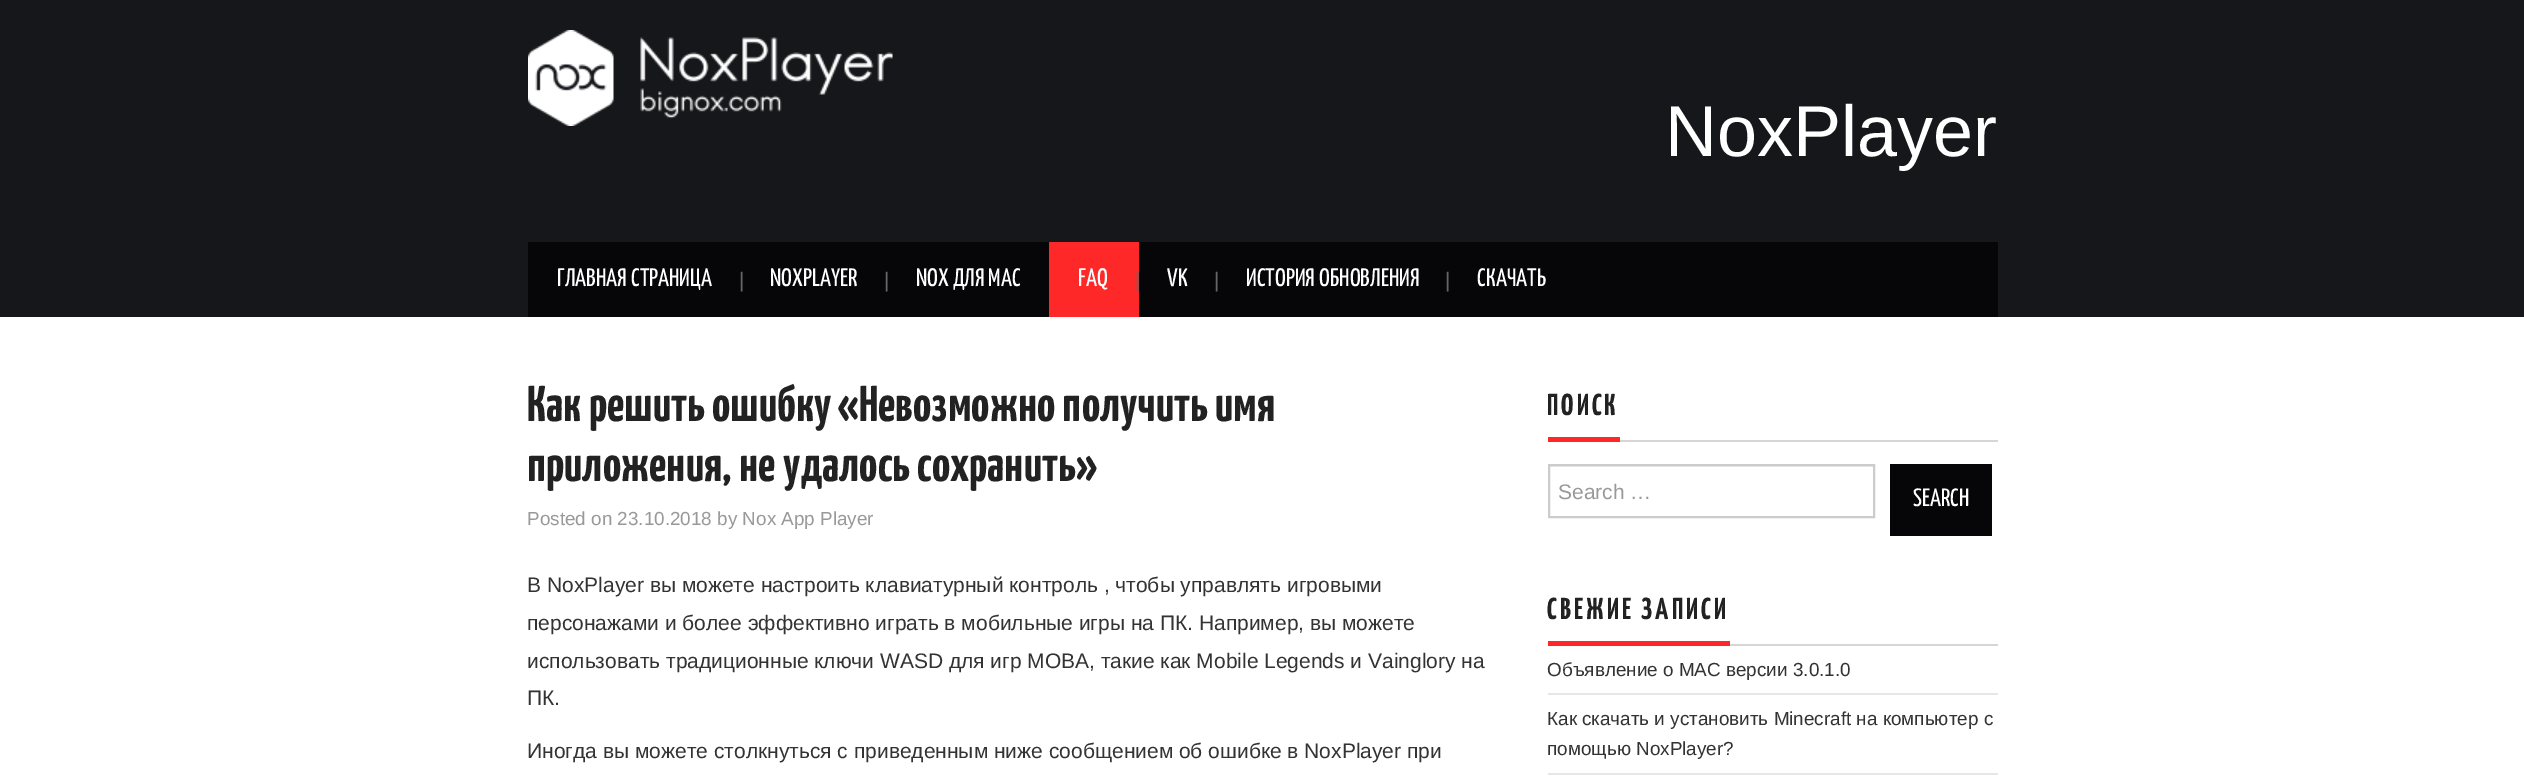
%!PS
<< /PageSize [2524 784] >> setpagedevice
/picture { 5 dict begin { /h /w /y /x /name } { exch def } forall
  gsave x y translate w h scale
  w h 8 [w 0 0 h 0 0] name (r) file false 3 colorimage grestore end } def
0 784 translate 1 -1 scale
4 setmiterlimit
1 setgray
0 0 2524 784 rectfill
0.086 0.09 0.106 setrgbcolor
0 0 2524 317 rectfill
(img1.rgb) 528 30 365 96 picture
/LiberationSans-Regular [72 0 0 -72 0 0] selectfont
1 setgray
1665 156 moveto (NoxPlayer) show
0.024 0.024 0.031 setrgbcolor
528 242 1470 75 rectfill
/YanoneKaffeesatz-Regular [25.25 0 0 -25.25 0 0] selectfont
1 setgray
557 286 moveto (ГЛАВНАЯ СТРАНИЦА) show
/LiberationSans-Regular [21 0 0 -21 0 0] selectfont
0.4 setgray
739 287 moveto (|) show
/YanoneKaffeesatz-Regular [25.25 0 0 -25.25 0 0] selectfont
1 setgray
770 286 moveto (NOXPLAYER) show
/LiberationSans-Regular [21 0 0 -21 0 0] selectfont
0.4 setgray
884 287 moveto (|) show
/YanoneKaffeesatz-Regular [25.25 0 0 -25.25 0 0] selectfont
1 setgray
916 286 moveto (NOX ДЛЯ MAC) show
1 0.157 0.157 setrgbcolor
1049 242 90 75 rectfill
1 setgray
1078 286 moveto (FAQ) show
/LiberationSans-Regular [21 0 0 -21 0 0] selectfont
0.4 setgray
1135 287 moveto (|) show
/YanoneKaffeesatz-Regular [25.25 0 0 -25.25 0 0] selectfont
1 setgray
1167 286 moveto (VK) show
/LiberationSans-Regular [21 0 0 -21 0 0] selectfont
0.4 setgray
1214 287 moveto (|) show
/YanoneKaffeesatz-Regular [25.25 0 0 -25.25 0 0] selectfont
1 setgray
1246 286 moveto (ИСТОРИЯ ОБНОВЛЕНИЯ) show
/LiberationSans-Regular [21 0 0 -21 0 0] selectfont
0.4 setgray
1445 287 moveto (|) show
/YanoneKaffeesatz-Regular [25.25 0 0 -25.25 0 0] selectfont
1 setgray
1477 286 moveto (СКАЧАТЬ) show
/YanoneKaffeesatz-Bold [50.4 0 0 -50.4 0 0] selectfont
0.133 setgray
527 421 moveto (Как решить ошибку «Невозможно получить имя) show
527 481 moveto (приложения, не удалось сохранить») show
/LiberationSans-Regular [18.9 0 0 -18.9 0 0] selectfont
0.6 setgray
527 525 moveto (Posted on 23.10.2018 by Nox App Player) show
/LiberationSans-Regular [21 0 0 -21 0 0] selectfont
0.2 setgray
527 592 moveto (В NoxPlayer вы можете настроить клавиатурный контроль , чтобы управлять игровыми) show
527 630 moveto (персонажами и более эффективно играть в мобильные игры на ПК. Например, вы можете) show
527 668 moveto (использовать традиционные ключи WASD для игр MOBA, такие как Mobile Legends и Vainglory на) show
527 705 moveto (ПК.) show
527 758 moveto (Иногда вы можете столкнуться с приведенным ниже сообщением об ошибке в NoxPlayer при) show
0.839 setgray
1620 440 378 2 rectfill
1 0.157 0.157 setrgbcolor
1548 437 72 5 rectfill
/YanoneKaffeesatz-Bold [30.25 0 0 -30.25 0 0] selectfont
0.133 setgray
1547 415 moveto 3 0 (ПОИСК) ashow
0.925 setgray
1550 466 324 1 rectfill
0.8 setgray
2 setlinewidth
1549 465 325 52 rectstroke
/LiberationSans-Regular [21 0 0 -21 0 0] selectfont
0.6 setgray
1558 499 moveto (Search …) show
0.024 0.024 0.031 setrgbcolor
1890 464 102 72 rectfill
/YanoneKaffeesatz-Regular [25 0 0 -25 0 0] selectfont
1 setgray
1913 506 moveto (SEARCH) show
0.839 setgray
1730 644 268 2 rectfill
1 0.157 0.157 setrgbcolor
1548 641 182 5 rectfill
/YanoneKaffeesatz-Bold [30.25 0 0 -30.25 0 0] selectfont
0.133 setgray
1547 619 moveto 3 0 (СВЕЖИЕ ЗАПИСИ) ashow
0.902 setgray
1548 693 450 2 rectfill
/LiberationSans-Regular [18.9 0 0 -18.9 0 0] selectfont
0.2 setgray
1547 676 moveto (Объявление о MAC версии 3.0.1.0) show
0.902 setgray
1548 773 450 2 rectfill
0.2 setgray
1547 725 moveto (Как скачать и установить Minecraft на компьютер с) show
1547 755 moveto (помощью NoxPlayer?) show
showpage
